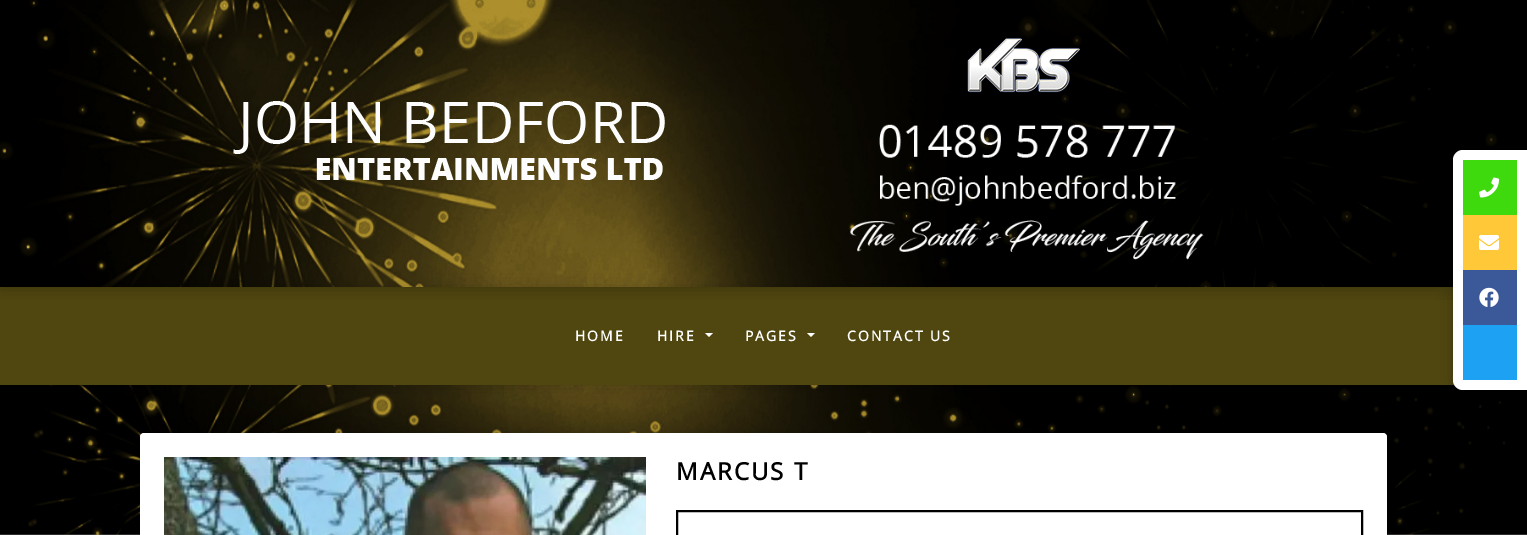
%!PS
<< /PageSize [1527 535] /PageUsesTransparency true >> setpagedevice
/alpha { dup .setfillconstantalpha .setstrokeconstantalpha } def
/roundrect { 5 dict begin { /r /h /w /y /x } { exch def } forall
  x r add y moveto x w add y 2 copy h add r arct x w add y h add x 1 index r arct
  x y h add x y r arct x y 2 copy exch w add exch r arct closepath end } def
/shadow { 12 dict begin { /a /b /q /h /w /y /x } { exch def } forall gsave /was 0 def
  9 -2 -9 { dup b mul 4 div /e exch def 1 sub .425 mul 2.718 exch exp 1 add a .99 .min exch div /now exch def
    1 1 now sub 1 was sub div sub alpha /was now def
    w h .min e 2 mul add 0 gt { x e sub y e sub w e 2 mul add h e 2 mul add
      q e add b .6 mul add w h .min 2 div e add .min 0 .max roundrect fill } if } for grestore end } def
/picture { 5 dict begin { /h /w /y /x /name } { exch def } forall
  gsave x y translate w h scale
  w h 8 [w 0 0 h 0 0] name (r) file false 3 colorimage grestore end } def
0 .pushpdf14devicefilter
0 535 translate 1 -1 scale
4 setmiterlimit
1 setgray
0 0 1527 535 rectfill
(img1.rgb) 0 0 1527 535 picture
0 setgray
0 290 1527 98 0 7.5 0.2 shadow
0.314 0.278 0.063 setrgbcolor
0 287 1455 98 rectfill
gsave
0 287 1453 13 rectclip
0 setgray
0 3 1527 287 0 7.5 0.2 shadow
grestore
(img2.rgb) 233 101 432 79 picture
(img3.rgb) 967 38 113 55 picture
(img4.rgb) 879 124 297 34 picture
(img5.rgb) 880 175 296 31 picture
(img6.rgb) 850 220 354 40 picture
/OpenSans-Bold [14 0 0 -14 0 0] selectfont
1 setgray
575 341 moveto 2 0 (HOME) ashow
657 341 moveto 2 0 (HIRE) ashow
newpath 705 333 moveto 713 333 lineto 709 337 lineto closepath fill
745 341 moveto 2 0 (PAGES) ashow
newpath 807 333 moveto 815 333 lineto 811 337 lineto closepath fill
847 341 moveto 2 0 (CONTACT US) ashow
0 setgray
1453 153 74 240 10 7.5 0.2 shadow
1 setgray
newpath 1463 150 moveto 1527 150 lineto 1527 390 lineto 1463 390 lineto 1457.5 390 1453 385.5 1453 380 curveto 1453 160 lineto 1453 154.5 1457.5 150 1463 150 curveto closepath fill
0.247 0.855 0.055 setrgbcolor
1463 160 54 55 rectfill
(img7.rgb) 1479 177 20 21 picture
1 0.784 0.22 setrgbcolor
1463 215 54 55 rectfill
(img8.rgb) 1479 235 20 15 picture
0.231 0.349 0.596 setrgbcolor
1463 270 54 55 rectfill
(img9.rgb) 1479 287 20 20 picture
0.114 0.631 0.949 setrgbcolor
1463 325 54 55 rectfill
0 setgray
140 436 1247 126 4 7.5 0.2 shadow
1 setgray
140 433 1247 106 4 roundrect fill
(img10.rgb) 164 457 482 78 picture
/OpenSans-Bold [24 0 0 -24 0 0] selectfont
0 setgray
676 480 moveto 2 0 (MARCUS T) ashow
2 setlinewidth
677 511 685 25 rectstroke
.poppdf14devicefilter showpage
